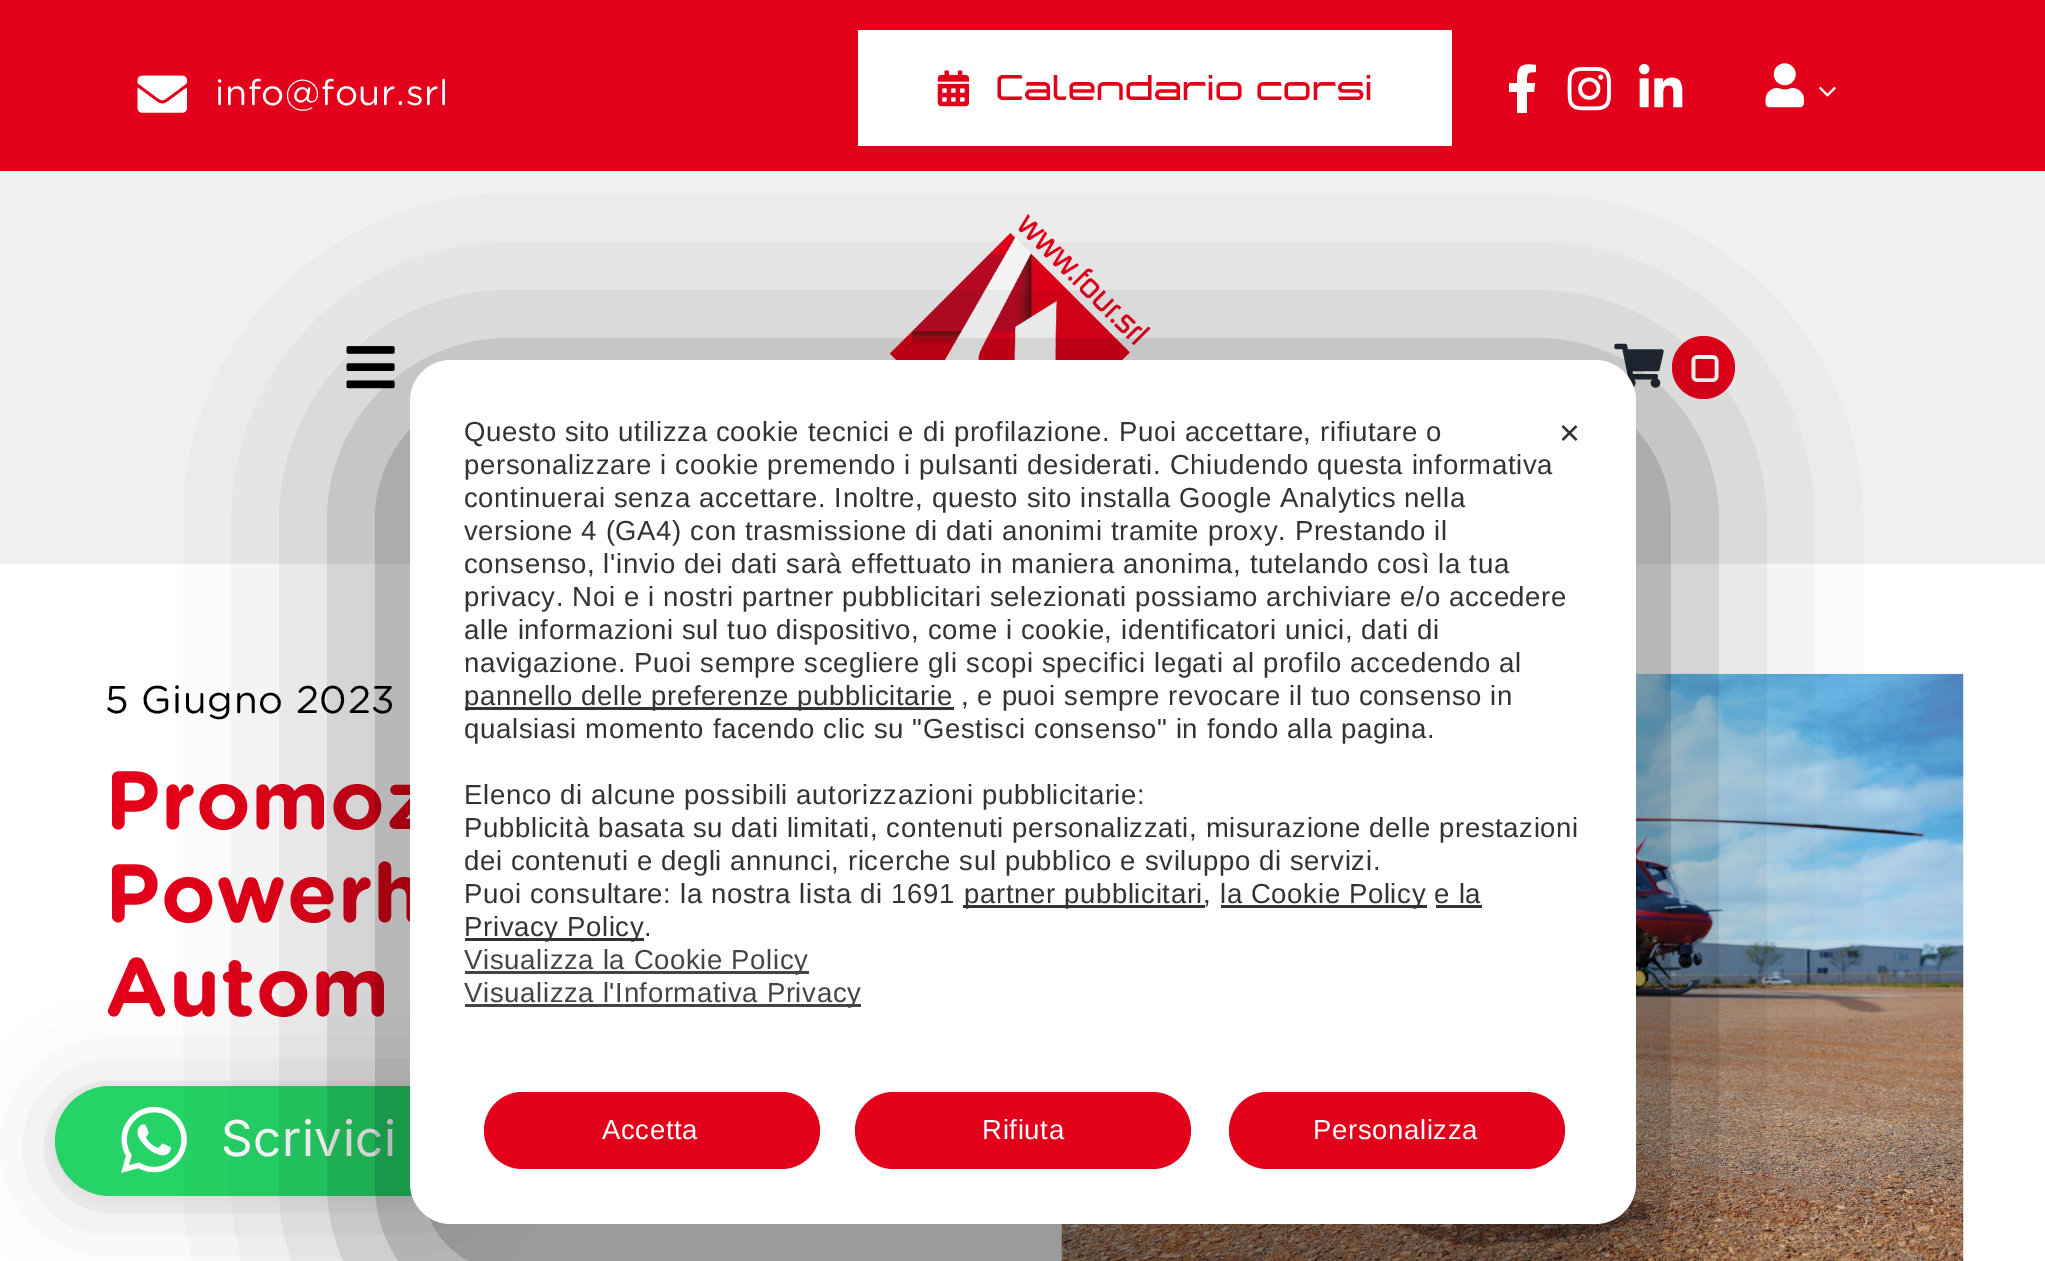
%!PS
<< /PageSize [2045 1261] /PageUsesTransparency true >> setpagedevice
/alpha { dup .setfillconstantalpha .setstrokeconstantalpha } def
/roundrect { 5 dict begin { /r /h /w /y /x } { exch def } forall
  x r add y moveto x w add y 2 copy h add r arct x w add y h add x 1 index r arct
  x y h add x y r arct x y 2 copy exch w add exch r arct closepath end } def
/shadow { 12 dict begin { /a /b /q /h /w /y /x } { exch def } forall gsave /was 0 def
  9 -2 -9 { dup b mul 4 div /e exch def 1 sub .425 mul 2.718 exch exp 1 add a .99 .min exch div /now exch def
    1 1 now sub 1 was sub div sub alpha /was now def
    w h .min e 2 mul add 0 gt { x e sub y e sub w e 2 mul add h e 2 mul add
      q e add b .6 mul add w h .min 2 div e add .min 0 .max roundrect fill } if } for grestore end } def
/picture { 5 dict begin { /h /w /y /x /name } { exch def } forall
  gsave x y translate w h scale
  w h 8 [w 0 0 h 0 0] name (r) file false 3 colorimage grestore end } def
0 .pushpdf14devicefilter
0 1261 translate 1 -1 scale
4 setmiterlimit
1 setgray
0 0 2045 1261 rectfill
0.886 0 0.102 setrgbcolor
0 0 2045 171 rectfill
(img1.rgb) 137 75 50 38 picture
/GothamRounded-Regular [35.75 0 0 -35.75 0 0] selectfont
1 setgray
215 105 moveto 0.65 0 (info@four.srl) ashow
858 30 594 116 rectfill
(img2.rgb) 937 70 33 37 picture
/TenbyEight-Bold [35.75 0 0 -35.75 0 0] selectfont
0.886 0 0.102 setrgbcolor
996 100 moveto 0.5 0 (Calendario corsi) ashow
1 setgray
newpath 1534 92 moveto 1527 92 lineto 1527 113 lineto 1517 113 lineto 1517 92 lineto 1509 92 lineto 1509 83 lineto 1517 83 lineto 1517 66 1520 63 1536 65 curveto 1536 72 lineto 1526 72 1527 74 1527 83 curveto 1535 83 lineto closepath fill
(img3.rgb) 1567 67 44 44 picture
(img4.rgb) 1639 63 44 45 picture
(img5.rgb) 1765 63 39 45 picture
(img6.rgb) 1819 86 17 11 picture
0.941 setgray
0 171 2045 393 rectfill
(img7.rgb) 889 214 262 146 picture
(img8.rgb) 346 346 49 43 picture
(img9.rgb) 1614 343 50 45 picture
0.886 0 0.102 setrgbcolor
newpath 1703.5 367.5 31.5 0 360 arc closepath fill
/TenbyEight-Bold [38.5 0 0 -38.5 0 0] selectfont
1 setgray
1690 382 moveto 1 0 (0) ashow
/GothamRounded-Regular [38.5 0 0 -38.5 0 0] selectfont
0 setgray
105 713 moveto 0.65 0 (5 Giugno 2023) ashow
/GothamRounded-Bold [82.5 0 0 -82.5 0 0] selectfont
0.886 0 0.102 setrgbcolor
105 829 moveto 0.65 0 (Promoz) ashow
105 922 moveto 0.65 0 (Powerh) ashow
105 1016 moveto 0.65 0 (Autom) ashow
(img10.rgb) 1061 673 903 588 picture
0 setgray
55 1092 407 110 55 44 0.16 shadow
55 1089 407 110 55 8 0.06 shadow
0.145 0.827 0.4 setrgbcolor
55 1086 407 110 55 roundrect fill
(img11.rgb) 121 1106 66 67 picture
/Inter-Regular [49.5 0 0 -49.5 0 0] selectfont
1 setgray
221 1156 moveto 0.65 0 (Scrivici) ashow
0 setgray
399 410 1248 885 52 96 0.56 shadow
1 setgray
410 360 1226 864 41 roundrect fill
/LiberationSans-Regular [27.5 0 0 -27.5 0 0] selectfont
0.2 setgray
464 441 moveto 0.65 0 (Questo sito utilizza cookie tecnici e di profilazione. Puoi accettare, rifiutare o) ashow
464 474 moveto 0.65 0 (personalizzare i cookie premendo i pulsanti desiderati. Chiudendo questa informativa) ashow
464 507 moveto 0.65 0 (continuerai senza accettare. Inoltre, questo sito installa Google Analytics nella) ashow
464 540 moveto 0.65 0 (versione 4 \(GA4\) con trasmissione di dati anonimi tramite proxy. Prestando il) ashow
464 573 moveto 0.65 0 (consenso, l'invio dei dati sarà effettuato in maniera anonima, tutelando così la tua) ashow
464 606 moveto 0.65 0 (privacy. Noi e i nostri partner pubblicitari selezionati possiamo archiviare e/o accedere) ashow
464 639 moveto 0.65 0 (alle informazioni sul tuo dispositivo, come i cookie, identificatori unici, dati di) ashow
464 672 moveto 0.65 0 (navigazione. Puoi sempre scegliere gli scopi specifici legati al profilo accedendo al) ashow
465 707 489 3 rectfill
464 705 moveto 0.65 0 (pannello delle preferenze pubblicitarie , e puoi sempre revocare il tuo consenso in) ashow
464 738 moveto 0.65 0 (qualsiasi momento facendo clic su "Gestisci consenso" in fondo alla pagina.) ashow
464 804 moveto 0.65 0 (Elenco di alcune possibili autorizzazioni pubblicitarie:) ashow
464 837 moveto 0.65 0 (Pubblicità basata su dati limitati, contenuti personalizzati, misurazione delle prestazioni) ashow
464 870 moveto 0.65 0 (dei contenuti e degli annunci, ricerche sul pubblico e sviluppo di servizi.) ashow
464 903 moveto 0.65 0 (Puoi consultare: la nostra lista di 1691) ashow
963 905 242 3 rectfill
964 903 moveto 0.65 0 (partner pubblicitari,) ashow
1221 905 206 3 rectfill
1220 903 moveto 0.65 0 (la Cookie Policy e la) ashow
465 938 179 3 rectfill
464 936 moveto 0.65 0 (Privacy Policy.) ashow
1436 905 46 3 rectfill
0.267 setgray
465 971 344 3 rectfill
464 969 moveto 0.65 0 (Visualizza la Cookie Policy) ashow
465 1004 396 3 rectfill
464 1002 moveto 0.65 0 (Visualizza l'Informativa Privacy) ashow
0.886 0 0.102 setrgbcolor
484 1092 336 77 38.5 roundrect fill
1 setgray
602 1139 moveto 0.65 0 (Accetta) ashow
0.886 0 0.102 setrgbcolor
855 1092 336 77 38.5 roundrect fill
1 setgray
982 1139 moveto 0.65 0 (Rifiuta) ashow
0.886 0 0.102 setrgbcolor
1229 1092 336 77 38.5 roundrect fill
1 setgray
1313 1139 moveto 0.65 0 (Personalizza) ashow
/DejaVuSans-Regular [27.5 0 0 -27.5 0 0] selectfont
0.2 setgray
1558 443 moveto 0.65 0 (✕) ashow
.poppdf14devicefilter showpage
